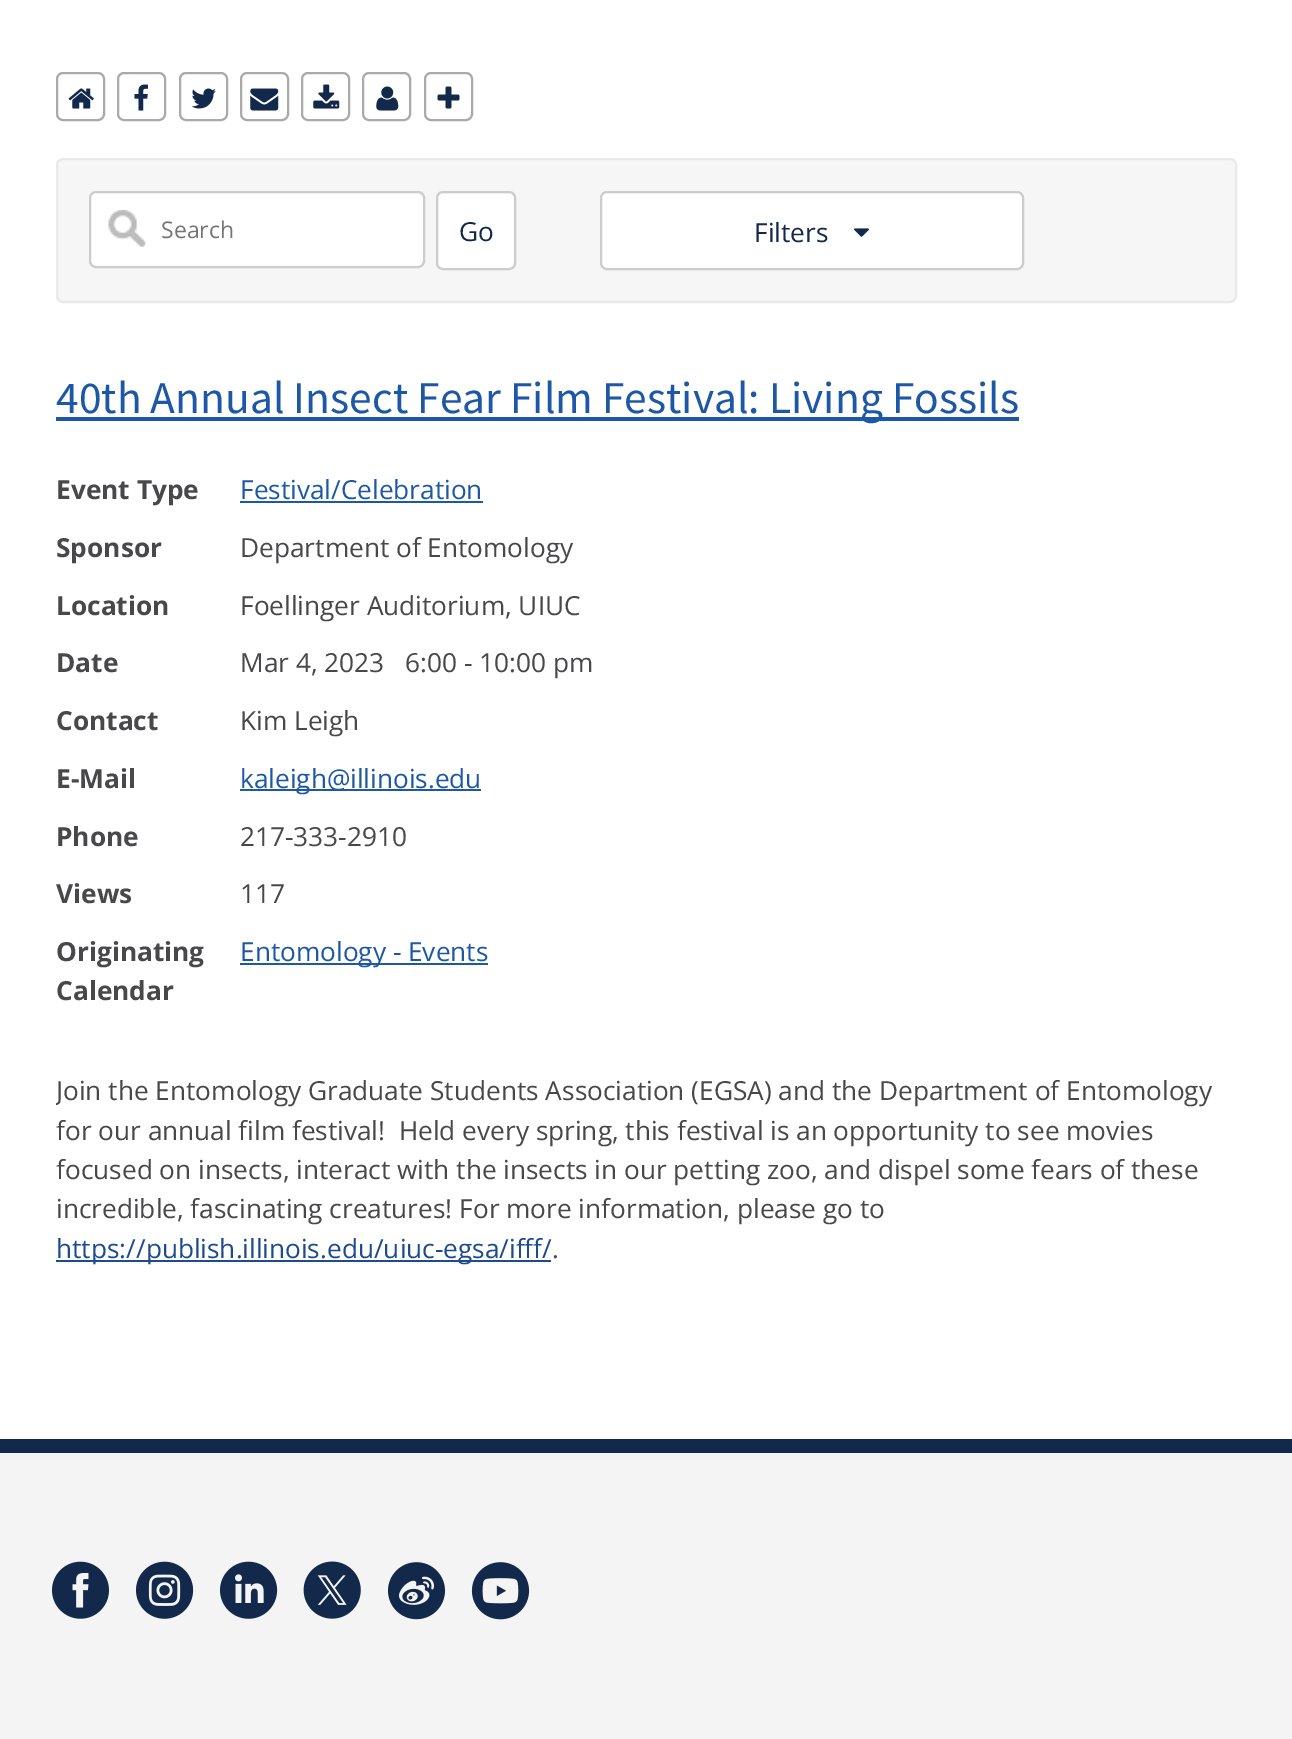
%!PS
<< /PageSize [1292 1739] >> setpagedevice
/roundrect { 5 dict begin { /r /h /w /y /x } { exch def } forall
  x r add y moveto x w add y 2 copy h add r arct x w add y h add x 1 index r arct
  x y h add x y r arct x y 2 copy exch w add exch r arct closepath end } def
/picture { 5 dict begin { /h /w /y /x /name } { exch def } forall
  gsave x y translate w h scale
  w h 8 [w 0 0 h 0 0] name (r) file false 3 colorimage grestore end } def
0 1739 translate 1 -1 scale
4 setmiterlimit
1 setgray
0 0 1292 1739 rectfill
0.667 setgray
2 setlinewidth
57 73 47 47 6 roundrect stroke
(img1.rgb) 68 88 26 21 picture
118 73 47 47 6 roundrect stroke
(img2.rgb) 134 84 14 27 picture
180 73 47 47 6 roundrect stroke
(img3.rgb) 191 88 25 21 picture
241 73 47 47 6 roundrect stroke
(img4.rgb) 250 88 29 23 picture
302 73 47 47 6 roundrect stroke
(img5.rgb) 313 84 27 25 picture
363 73 47 47 6 roundrect stroke
(img6.rgb) 376 86 23 25 picture
425 73 47 47 6 roundrect stroke
(img7.rgb) 437 86 23 23 picture
0.965 setgray
57 159 1179 143 6 roundrect gsave fill grestore
0.914 setgray
stroke
1 setgray
89 191 336 77 7 roundrect fill
(img8.rgb) 108 210 38 37 picture
0.8 setgray
90 192 334 75 6 roundrect stroke
/OpenSans-Regular [23 0 0 -23 0 0] selectfont
0.459 setgray
161 238 moveto (Search) show
1 setgray
437 192 78 77 6 roundrect gsave fill grestore
0.8 setgray
stroke
/OpenSans-Regular [26.25 0 0 -26.25 0 0] selectfont
0.075 0.161 0.294 setrgbcolor
459 241 moveto (Go) show
1 setgray
601 192 422 77 6 roundrect gsave fill grestore
0.8 setgray
stroke
0.075 0.161 0.294 setrgbcolor
754 242 moveto (Filters) show
(img9.rgb) 854 228 15 9 picture
0.114 0.345 0.655 setrgbcolor
56 417 963 4 rectfill
/SourceSansPro-Regular [45.5 0 0 -45.5 0 0] selectfont
56 413 moveto (40th Annual Insect Fear Film Festival: Living Fossils) show
/OpenSans-Bold [26.25 0 0 -26.25 0 0] selectfont
0.282 0.282 0.29 setrgbcolor
56 499 moveto (Event Type) show
/OpenSans-Regular [26.25 0 0 -26.25 0 0] selectfont
0.114 0.345 0.655 setrgbcolor
240 499 moveto (Festival/Celebration) show
240 501 243 2 rectfill
/OpenSans-Bold [26.25 0 0 -26.25 0 0] selectfont
0.282 0.282 0.29 setrgbcolor
56 557 moveto (Sponsor) show
/OpenSans-Regular [26.25 0 0 -26.25 0 0] selectfont
240 557 moveto (Department of Entomology) show
/OpenSans-Bold [26.25 0 0 -26.25 0 0] selectfont
56 615 moveto (Location) show
/OpenSans-Regular [26.25 0 0 -26.25 0 0] selectfont
240 615 moveto (Foellinger Auditorium, UIUC) show
/OpenSans-Bold [26.25 0 0 -26.25 0 0] selectfont
56 672 moveto (Date) show
/OpenSans-Regular [26.25 0 0 -26.25 0 0] selectfont
240 672 moveto (Mar 4, 2023   6:00 - 10:00 pm) show
/OpenSans-Bold [26.25 0 0 -26.25 0 0] selectfont
56 730 moveto (Contact) show
/OpenSans-Regular [26.25 0 0 -26.25 0 0] selectfont
240 730 moveto (Kim Leigh) show
/OpenSans-Bold [26.25 0 0 -26.25 0 0] selectfont
56 788 moveto (E-Mail) show
0.114 0.345 0.655 setrgbcolor
240 789 241 2 rectfill
/OpenSans-Regular [26.25 0 0 -26.25 0 0] selectfont
240 788 moveto (kaleigh@illinois.edu) show
/OpenSans-Bold [26.25 0 0 -26.25 0 0] selectfont
0.282 0.282 0.29 setrgbcolor
56 846 moveto (Phone) show
/OpenSans-Regular [26.25 0 0 -26.25 0 0] selectfont
240 846 moveto (217-333-2910) show
/OpenSans-Bold [26.25 0 0 -26.25 0 0] selectfont
56 903 moveto (Views) show
/OpenSans-Regular [26.25 0 0 -26.25 0 0] selectfont
240 903 moveto (117) show
/OpenSans-Bold [26.25 0 0 -26.25 0 0] selectfont
56 961 moveto (Originating) show
56 1000 moveto (Calendar) show
0.114 0.345 0.655 setrgbcolor
240 963 248 2 rectfill
/OpenSans-Regular [26.25 0 0 -26.25 0 0] selectfont
240 961 moveto (Entomology - Events) show
gsave
56 324 1181 1010 rectclip
0.282 0.282 0.29 setrgbcolor
56 1100 moveto (Join the Entomology Graduate Students Association \(EGSA\) and the Department of Entomology) show
grestore
0.282 0.282 0.29 setrgbcolor
56 1140 moveto (for our annual film festival!  Held every spring, this festival is an opportunity to see movies) show
56 1179 moveto (focused on insects, interact with the insects in our petting zoo, and dispel some fears of these) show
56 1218 moveto (incredible, fascinating creatures! For more information, please go to) show
0.114 0.294 0.565 setrgbcolor
56 1260 495 2 rectfill
56 1258 moveto (https://publish.illinois.edu/uiuc-egsa/ifff/) show
0.282 0.282 0.29 setrgbcolor
552 1258 moveto (.) show
0.957 setgray
0 1453 1292 286 rectfill
0.075 0.161 0.294 setrgbcolor
0 1439 1292 14 rectfill
(img10.rgb) 51 1561 59 58 picture
(img11.rgb) 135 1561 59 58 picture
(img12.rgb) 219 1561 59 58 picture
(img13.rgb) 303 1561 58 58 picture
(img14.rgb) 387 1562 59 58 picture
(img15.rgb) 471 1562 59 58 picture
showpage
